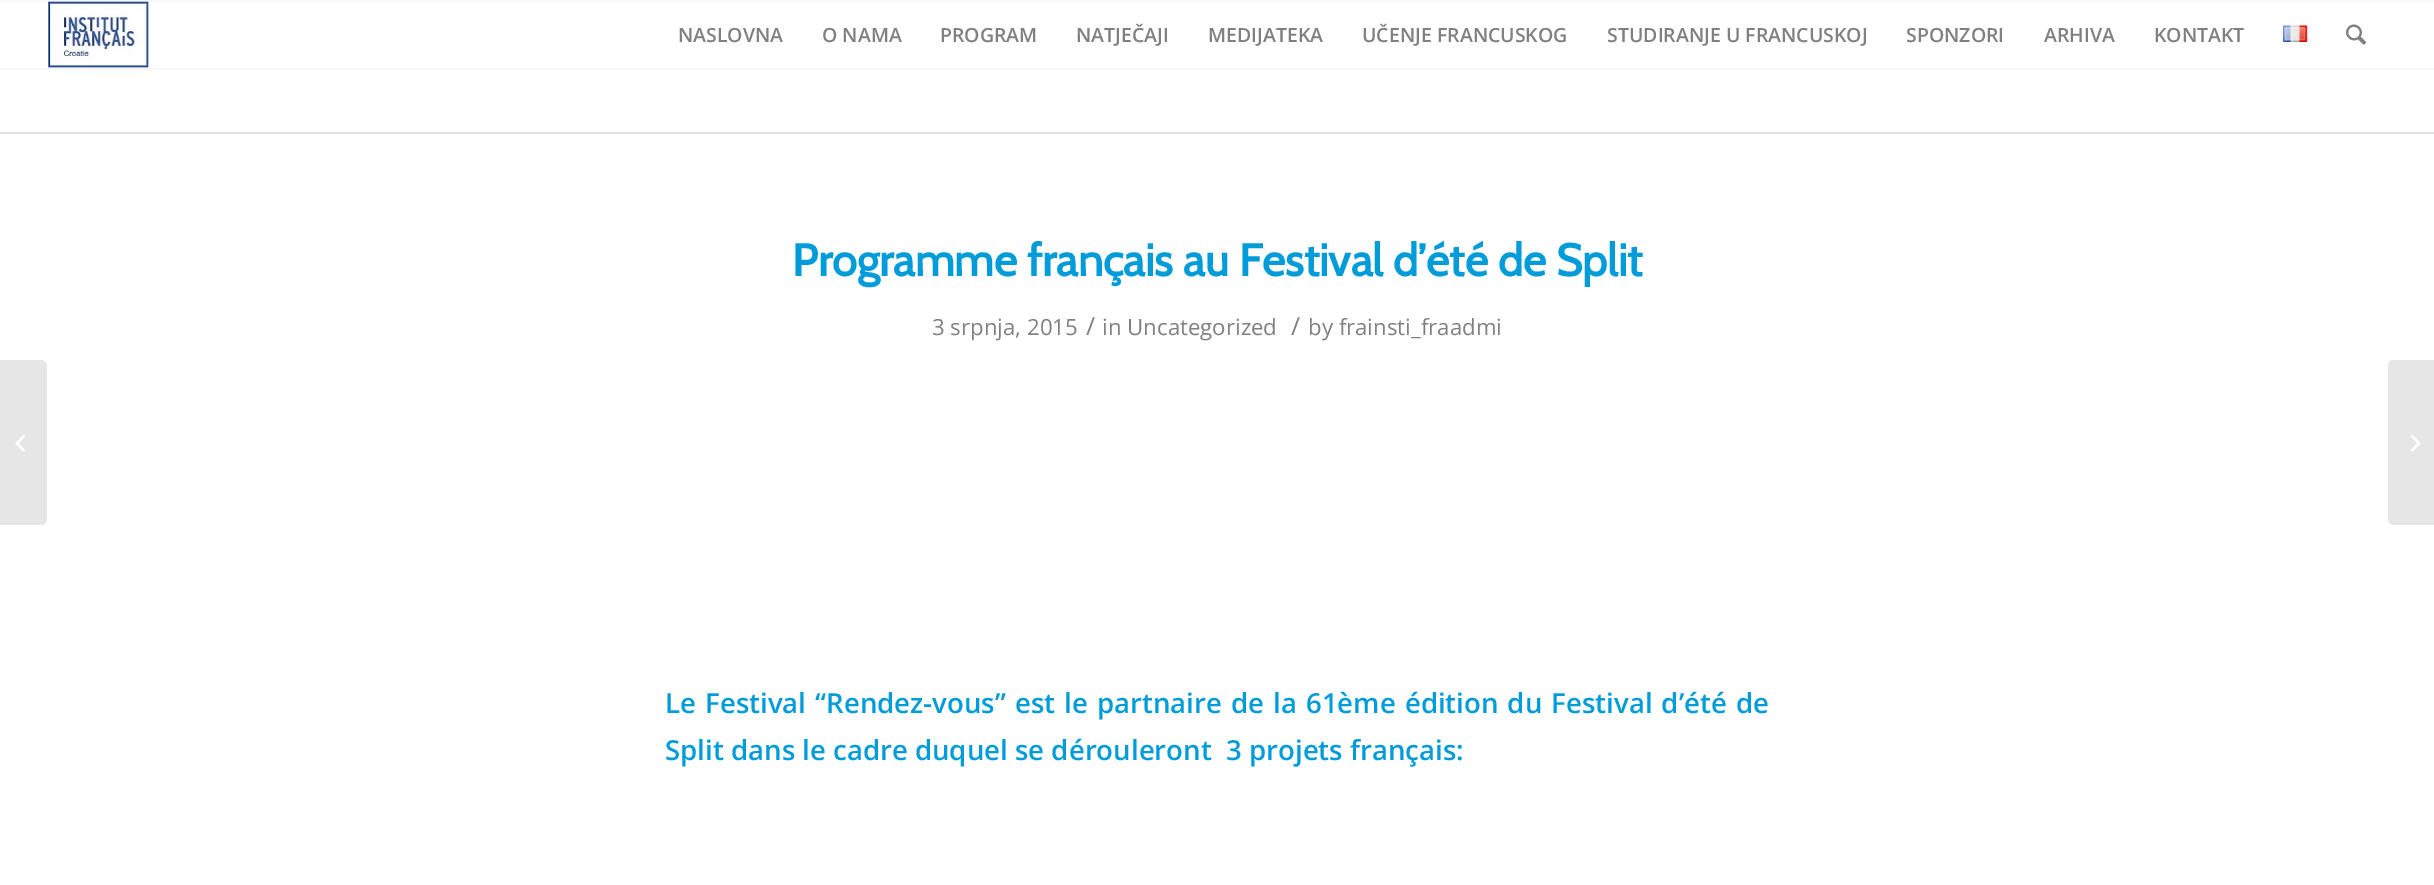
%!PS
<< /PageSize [2434 885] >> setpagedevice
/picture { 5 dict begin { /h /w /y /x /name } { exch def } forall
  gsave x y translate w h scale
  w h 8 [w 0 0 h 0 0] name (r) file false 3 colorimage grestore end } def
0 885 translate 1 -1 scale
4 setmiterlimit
1 setgray
0 0 2434 885 rectfill
0.969 setgray
0 0 2434 2 rectfill
0 68 2434 2 rectfill
(img1.rgb) 48 1 101 67 picture
/OpenSans-SemiBold [19.5 0 0 -19.5 0 0] selectfont
0.502 setgray
678 42 moveto (NASLOVNA) show
822 42 moveto (O NAMA) show
940 42 moveto (PROGRAM) show
1076 42 moveto (NATJEČAJI) show
1208 42 moveto (MEDIJATEKA) show
1362 42 moveto (UČENJE FRANCUSKOG) show
1607 42 moveto (STUDIRANJE U FRANCUSKOJ) show
1906 42 moveto (SPONZORI) show
2044 42 moveto (ARHIVA) show
2154 42 moveto (KONTAKT) show
(img2.rgb) 2283 25 25 17 picture
(img3.rgb) 2346 24 21 21 picture
0.902 setgray
newpath 0 360 moveto 41 360 lineto 44.5 360 47 362.5 47 366 curveto 47 519 lineto 47 522.5 44.5 525 41 525 curveto 0 525 lineto closepath fill
(img4.rgb) 15 435 10 17 picture
0.882 setgray
0 132 2434 2 rectfill
/Cabin-Bold [45 0 0 -45 0 0] selectfont
0 0.612 0.855 setrgbcolor
792 276 moveto (Programme français au Festival d’été de Split) show
/OpenSans-Regular [22.25 0 0 -22.25 0 0] selectfont
0.502 setgray
932 335 moveto (3 srpnja, 2015) show
/OpenSans-Regular [25 0 0 -25 0 0] selectfont
1086 335 moveto (/) show
/OpenSans-Regular [22.25 0 0 -22.25 0 0] selectfont
1102 335 moveto (in Uncategorized) show
/OpenSans-Regular [25 0 0 -25 0 0] selectfont
1291 335 moveto (/) show
/OpenSans-Regular [22.25 0 0 -22.25 0 0] selectfont
1308 335 moveto (by frainsti_fraadmi) show
/OpenSans-SemiBold [27.6 0 0 -27.6 0 0] selectfont
0 0.612 0.855 setrgbcolor
665 713 moveto 1.9 0 32 (Le Festival “Rendez-vous” est le partnaire de la 61ème édition du Festival d’été de) widthshow
665 760 moveto (Split dans le cadre duquel se dérouleront  3 projets français:) show
0.902 setgray
newpath 2394 360 moveto 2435 360 lineto 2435 525 lineto 2394 525 lineto 2390.5 525 2388 522.5 2388 519 curveto 2388 366 lineto 2388 362.5 2390.5 360 2394 360 curveto closepath fill
(img5.rgb) 2411 435 10 17 picture
showpage
